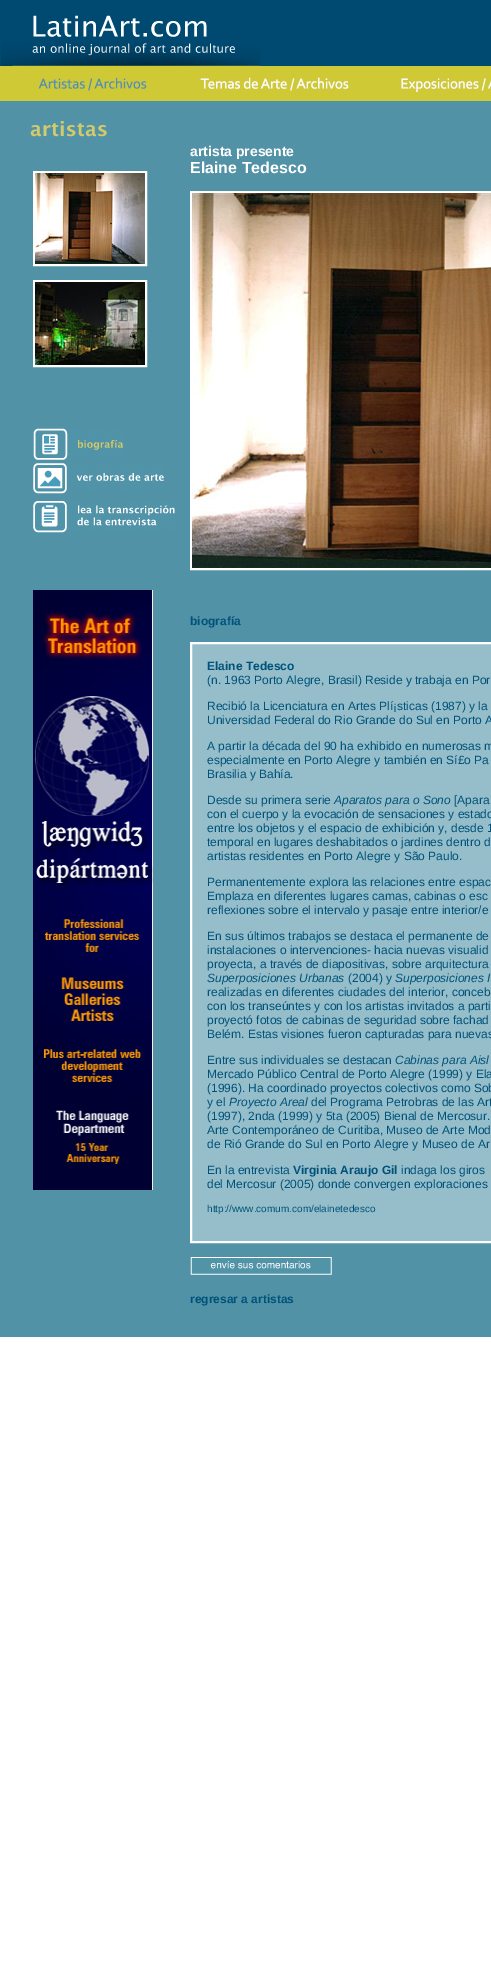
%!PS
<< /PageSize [491 1973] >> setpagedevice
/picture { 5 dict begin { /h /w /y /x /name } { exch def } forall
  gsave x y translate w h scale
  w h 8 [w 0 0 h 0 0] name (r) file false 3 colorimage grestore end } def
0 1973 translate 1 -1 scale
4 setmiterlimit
1 setgray
0 0 491 1973 rectfill
0 0.286 0.443 setrgbcolor
0 0 491 66 rectfill
(img1.rgb) 0 15 260 51 picture
0.812 0.788 0.212 setrgbcolor
0 66 491 35 rectfill
(img2.rgb) 38 77 109 14 picture
(img3.rgb) 200 77 149 14 picture
(img4.rgb) 401 78 90 14 picture
0.318 0.573 0.651 setrgbcolor
0 101 491 1236 rectfill
(img5.rgb) 30 121 77 16 picture
1 setgray
2 setlinewidth
34 172 112 93 rectstroke
(img6.rgb) 35 173 110 91 picture
34 281 112 85 rectstroke
(img7.rgb) 35 282 110 83 picture
(img8.rgb) 33 428 90 32 picture
(img9.rgb) 33 463 131 31 picture
(img10.rgb) 33 501 142 32 picture
(img11.rgb) 33 590 120 600 picture
/LiberationSans-Bold [14 0 0 -14 0 0] selectfont
190 156 moveto (artista presente) show
/LiberationSans-Bold [16 0 0 -16 0 0] selectfont
190 173 moveto (Elaine Tedesco) show
191 192 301 377 rectstroke
(img12.rgb) 192 193 299 375 picture
/LiberationSans-Bold [12 0 0 -12 0 0] selectfont
0 0.322 0.478 setrgbcolor
190 625 moveto (biografía) show
0.588 0.745 0.792 setrgbcolor
newpath 191 643 moveto 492 643 lineto 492 1242 lineto 191 1242 lineto closepath gsave fill grestore
1 setgray
stroke
0 0.322 0.478 setrgbcolor
207 670 moveto (Elaine Tedesco) show
/LiberationSans-Regular [12 0 0 -12 0 0] selectfont
207 684 moveto (\(n. 1963 Porto Alegre, Brasil\) Reside y trabaja en Por) show
207 710 moveto (Recibió la Licenciatura en Artes Plí¡sticas \(1987\) y la) show
207 724 moveto (Universidad Federal do Rio Grande do Sul en Porto A) show
207 750 moveto (A partir la década del 90 ha exhibido en numerosas m) show
207 764 moveto (especialmente en Porto Alegre y también en Sí£o Pa) show
207 778 moveto (Brasilia y Bahía.) show
207 804 moveto (Desde su primera serie) show
/LiberationSans-Italic [12 0 0 -12 0 0] selectfont
334 804 moveto (Aparatos para o Sono) show
/LiberationSans-Regular [12 0 0 -12 0 0] selectfont
454 804 moveto ([Apara) show
207 818 moveto (con el cuerpo y la evocación de sensaciones y estado) show
207 832 moveto (entre los objetos y el espacio de exhibición y, desde 1) show
207 846 moveto (temporal en lugares deshabitados o jardines dentro d) show
207 860 moveto (artistas residentes en Porto Alegre y São Paulo.) show
207 886 moveto (Permanentemente explora las relaciones entre espac) show
207 900 moveto (Emplaza en diferentes lugares camas, cabinas o esc) show
207 914 moveto (reflexiones sobre el intervalo y pasaje entre interior/e) show
207 940 moveto (En sus últimos trabajos se destaca el permanente de) show
207 954 moveto (instalaciones o intervenciones- hacia nuevas visualid) show
207 968 moveto (proyecta, a través de diapositivas, sobre arquitectura) show
/LiberationSans-Italic [12 0 0 -12 0 0] selectfont
207 982 moveto (Superposiciones Urbanas) show
/LiberationSans-Regular [12 0 0 -12 0 0] selectfont
348 982 moveto (\(2004\) y) show
/LiberationSans-Italic [12 0 0 -12 0 0] selectfont
395 982 moveto (Superposiciones I) show
/LiberationSans-Regular [12 0 0 -12 0 0] selectfont
207 996 moveto (realizadas en diferentes ciudades del interior, conceb) show
207 1010 moveto (con los transeúntes y con los artistas invitados a parti) show
207 1024 moveto (proyectó fotos de cabinas de seguridad sobre fachad) show
207 1038 moveto (Belém. Estas visiones fueron capturadas para nuevas) show
207 1064 moveto (Entre sus individuales se destacan) show
/LiberationSans-Italic [12 0 0 -12 0 0] selectfont
395 1064 moveto (Cabinas para Aisl) show
/LiberationSans-Regular [12 0 0 -12 0 0] selectfont
207 1078 moveto (Mercado Público Central de Porto Alegre \(1999\) y Ela) show
207 1092 moveto (\(1996\). Ha coordinado proyectos colectivos como Sob) show
207 1106 moveto (y el) show
/LiberationSans-Italic [12 0 0 -12 0 0] selectfont
229 1106 moveto (Proyecto Areal) show
/LiberationSans-Regular [12 0 0 -12 0 0] selectfont
311 1106 moveto (del Programa Petrobras de las Art) show
207 1120 moveto (\(1997\), 2nda \(1999\) y 5ta \(2005\) Bienal de Mercosur.) show
207 1134 moveto (Arte Contemporáneo de Curitiba, Museo de Arte Mod) show
207 1148 moveto (de Rió Grande do Sul en Porto Alegre y Museo de Ar) show
207 1174 moveto (En la entrevista) show
/LiberationSans-Bold [12 0 0 -12 0 0] selectfont
293 1174 moveto (Virginia Araujo Gil) show
/LiberationSans-Regular [12 0 0 -12 0 0] selectfont
401 1174 moveto (indaga los giros) show
207 1188 moveto (del Mercosur \(2005\) donde convergen exploraciones) show
/LiberationSans-Regular [10 0 0 -10 0 0] selectfont
207 1212 moveto (http://www.comum.com/elainetedesco) show
(img13.rgb) 190 1257 142 18 picture
/LiberationSans-Bold [12 0 0 -12 0 0] selectfont
190 1303 moveto (regresar a artistas) show
showpage
